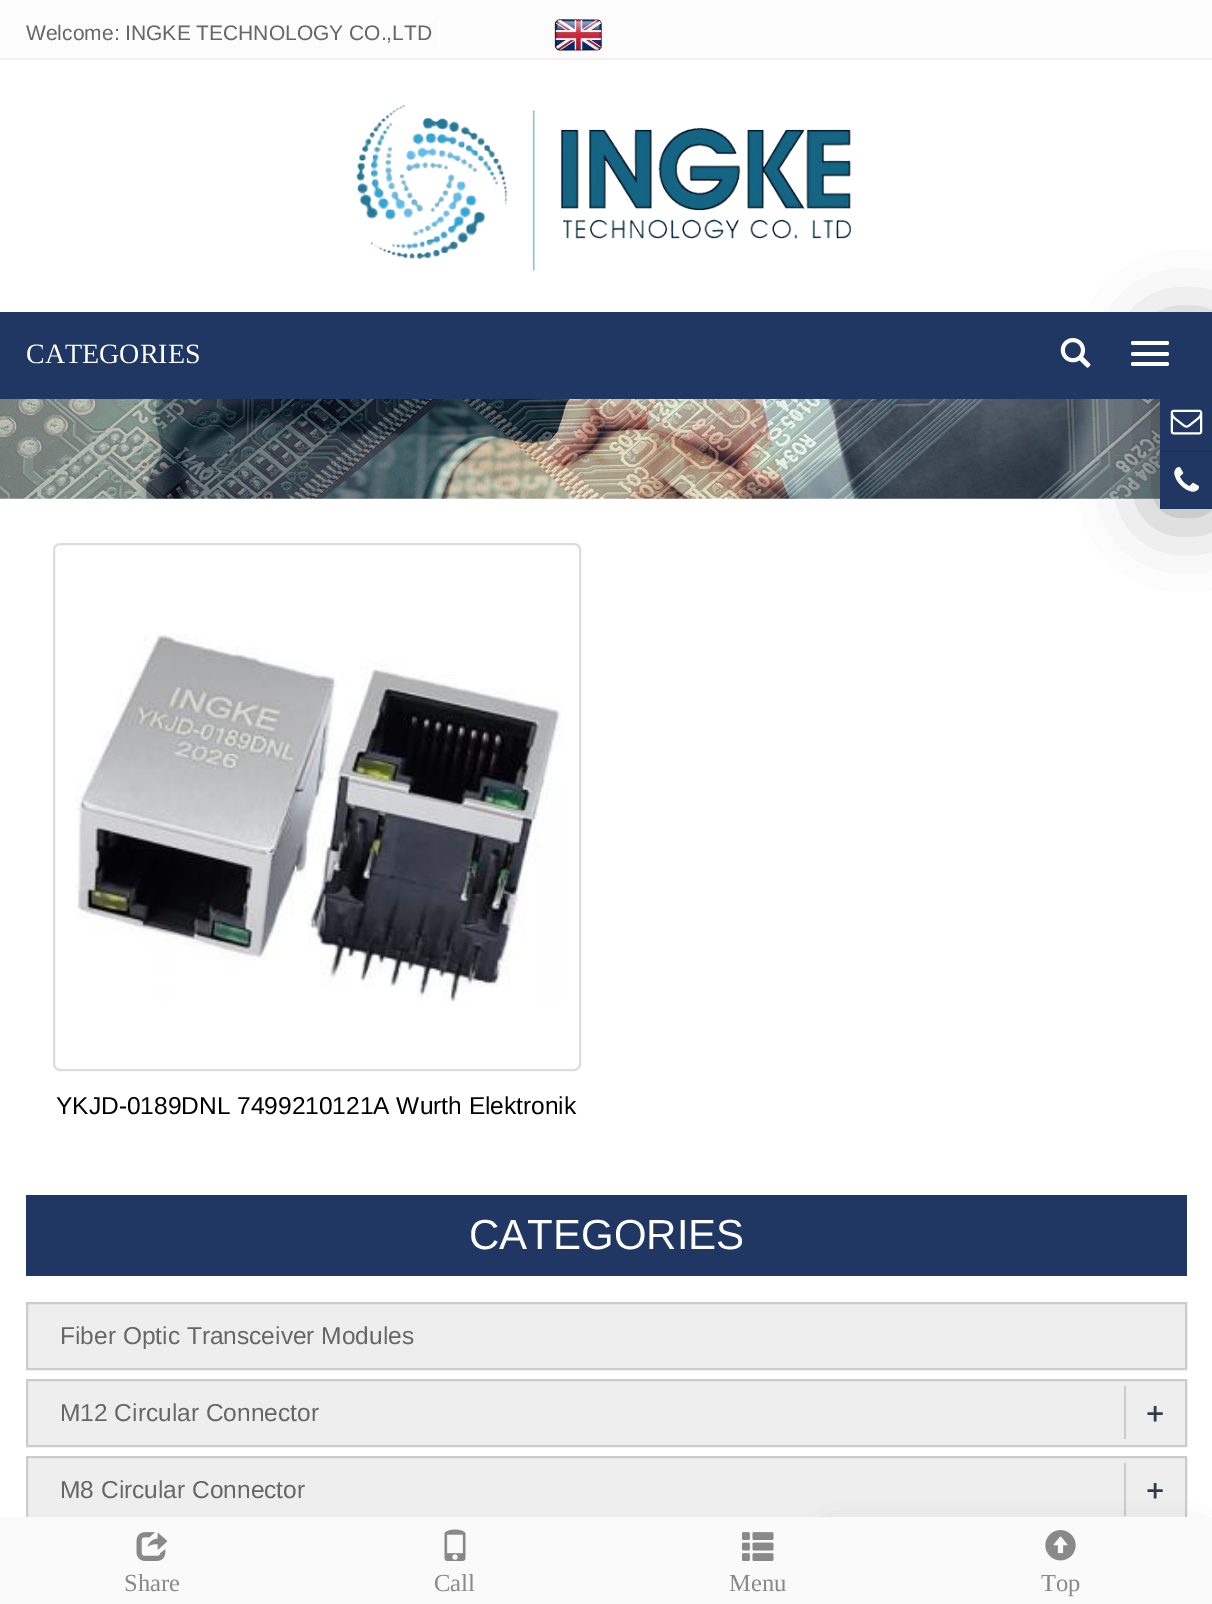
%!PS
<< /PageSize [1212 1604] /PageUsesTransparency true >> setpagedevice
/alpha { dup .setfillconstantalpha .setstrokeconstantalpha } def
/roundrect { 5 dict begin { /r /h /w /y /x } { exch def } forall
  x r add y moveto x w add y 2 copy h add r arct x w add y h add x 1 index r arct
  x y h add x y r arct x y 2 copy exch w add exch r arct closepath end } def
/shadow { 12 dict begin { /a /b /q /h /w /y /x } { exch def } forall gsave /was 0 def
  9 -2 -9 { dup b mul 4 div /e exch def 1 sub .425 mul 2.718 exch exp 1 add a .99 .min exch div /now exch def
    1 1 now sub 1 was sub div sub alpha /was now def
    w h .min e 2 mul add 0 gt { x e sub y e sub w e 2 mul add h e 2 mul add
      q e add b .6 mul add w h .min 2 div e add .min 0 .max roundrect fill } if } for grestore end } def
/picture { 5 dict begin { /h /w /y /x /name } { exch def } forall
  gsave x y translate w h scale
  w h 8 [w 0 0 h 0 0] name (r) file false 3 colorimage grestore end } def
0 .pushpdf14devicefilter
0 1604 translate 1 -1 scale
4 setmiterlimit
1 setgray
0 0 1212 1604 rectfill
0.988 setgray
0 0 1212 58 rectfill
0.945 setgray
0 58 1212 2 rectfill
/LiberationSans-Regular [21 0 0 -21 0 0] selectfont
0.4 setgray
26 40 moveto (Welcome: INGKE TECHNOLOGY CO.,LTD) show
1 setgray
438 21 2 25 rectfill
(img1.rgb) 554 19 48 32 picture
(img2.rgb) 356 105 496 166 picture
(img6.rgb) 0 399 1160 100 picture
0 setgray
1160 333 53 176 0 37 0.4 shadow
0.125 0.212 0.388 setrgbcolor
0 312 1212 87 rectfill
/LiberationSerif-Regular [28 0 0 -28 0 0] selectfont
1 setgray
26 363 moveto (CATEGORIES) show
(img3.rgb) 1060 338 31 30 picture
1131 341 38 4 2 roundrect fill
1131 352 38 4 2 roundrect fill
1131 362 38 4 2 roundrect fill
0.125 0.212 0.388 setrgbcolor
1160 399 52 110 rectfill
0.114 0.192 0.349 setrgbcolor
1160 450 52 2 rectfill
(img4.rgb) 1170 409 33 26 picture
(img5.rgb) 1174 467 25 25 picture
0.867 setgray
2 setlinewidth
54 544 526 526 6 roundrect stroke
(img7.rgb) 75 633 487 369 picture
/LiberationSans-Regular [24.5 0 0 -24.5 0 0] selectfont
0 setgray
56 1114 moveto (YKJD-0189DNL 7499210121A Wurth Elektronik) show
0.125 0.212 0.388 setrgbcolor
26 1195 1161 81 rectfill
/LiberationSans-Regular [42 0 0 -42 0 0] selectfont
1 setgray
469 1249 moveto (CATEGORIES) show
0.933 setgray
newpath 27 1303 moveto 1186 1303 lineto 1186 1369 lineto 27 1369 lineto closepath gsave fill grestore
0.8 setgray
stroke
/LiberationSans-Regular [24.5 0 0 -24.5 0 0] selectfont
0.4 setgray
60 1344 moveto (Fiber Optic Transceiver Modules) show
0.933 setgray
newpath 27 1380 moveto 1186 1380 lineto 1186 1446 lineto 27 1446 lineto closepath gsave fill grestore
0.8 setgray
stroke
0.4 setgray
60 1421 moveto (M12 Circular Connector) show
0.8 setgray
1124 1386 2 53 rectfill
/OpenSans-SemiBold [32 0 0 -32 0 0] selectfont
0.188 0.235 0.294 setrgbcolor
1146 1425 moveto (+) show
0.933 setgray
28 1458 1157 59 rectfill
0.8 setgray
27 1457 1159 66 rectstroke
/LiberationSans-Regular [24.5 0 0 -24.5 0 0] selectfont
0.4 setgray
60 1498 moveto (M8 Circular Connector) show
0.8 setgray
1124 1463 2 53 rectfill
/OpenSans-SemiBold [32 0 0 -32 0 0] selectfont
0.188 0.235 0.294 setrgbcolor
1146 1502 moveto (+) show
0 setgray
833 1542 362 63 0 18.5 0.3 shadow
0.98 setgray
0 1517 1212 87 rectfill
(img8.rgb) 136 1532 32 29 picture
/LiberationSerif-Regular [24.5 0 0 -24.5 0 0] selectfont
0.537 setgray
124 1591 moveto (Share) show
(img9.rgb) 444 1529 22 32 picture
434 1591 moveto (Call) show
(img10.rgb) 742 1532 32 29 picture
729 1591 moveto (Menu) show
(img11.rgb) 1045 1530 31 31 picture
1041 1591 moveto (Top) show
.poppdf14devicefilter showpage
